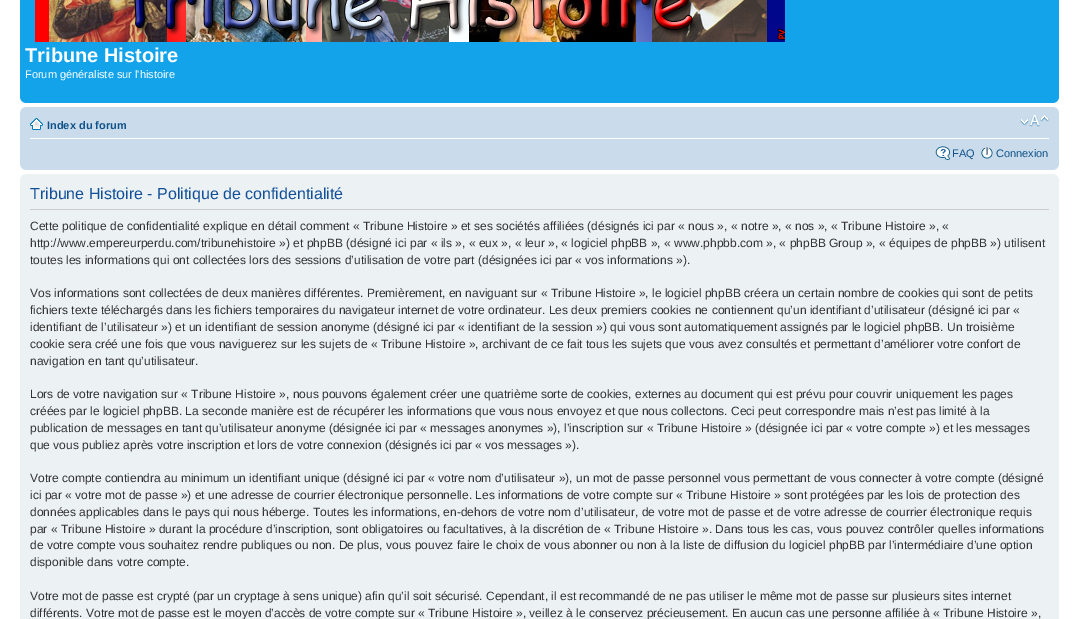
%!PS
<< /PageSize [1079 619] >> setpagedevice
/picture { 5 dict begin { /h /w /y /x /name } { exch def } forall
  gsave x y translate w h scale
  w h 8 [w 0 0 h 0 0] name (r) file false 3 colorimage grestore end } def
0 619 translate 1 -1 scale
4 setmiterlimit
1 setgray
0 0 1079 619 rectfill
0.071 0.639 0.922 setrgbcolor
20 0 1039 103 rectfill
(img1.rgb) 35 0 750 42 picture
/LiberationSans-Bold [20 0 0 -20 0 0] selectfont
1 setgray
25 62 moveto (Tribune Histoire) show
/LiberationSans-Regular [11 0 0 -11 0 0] selectfont
25 78 moveto (Forum généraliste sur l'histoire) show
(img2.rgb) 20 98 5 5 picture
(img3.rgb) 1054 98 5 5 picture
0.792 0.863 0.922 setrgbcolor
20 107 1039 63 rectfill
(img4.rgb) 20 107 5 5 picture
(img5.rgb) 1054 107 5 5 picture
1 setgray
30 138 1019 1 rectfill
(img6.rgb) 30 118 13 12 picture
/LiberationSans-Bold [11 0 0 -11 0 0] selectfont
0.063 0.322 0.537 setrgbcolor
47 129 moveto (Index du forum) show
(img7.rgb) 1020 115 29 12 picture
(img8.rgb) 935 146 16 14 picture
/LiberationSans-Regular [11 0 0 -11 0 0] selectfont
952 157 moveto (FAQ) show
(img9.rgb) 981 147 12 12 picture
996 157 moveto (Connexion) show
(img10.rgb) 20 165 5 5 picture
(img11.rgb) 1054 165 5 5 picture
0.925 0.945 0.953 setrgbcolor
20 174 1039 445 rectfill
(img12.rgb) 20 174 5 5 picture
(img13.rgb) 1054 174 5 5 picture
0.8 setgray
30 209 1019 1 rectfill
/LiberationSans-Regular [16 0 0 -16 0 0] selectfont
0.067 0.314 0.596 setrgbcolor
30 199 moveto (Tribune Histoire - Politique de confidentialité) show
/LiberationSans-Regular [12 0 0 -12 0 0] selectfont
0.2 setgray
30 230 moveto (Cette politique de confidentialité explique en détail comment « Tribune Histoire » et ses sociétés affiliées \(désignés ici par « nous », « notre », « nos », « Tribune Histoire », «) show
30 247 moveto (http://www.empereurperdu.com/tribunehistoire »\) et phpBB \(désigné ici par « ils », « eux », « leur », « logiciel phpBB », « www.phpbb.com », « phpBB Group », « équipes de phpBB »\) utilisent) show
30 264 moveto (toutes les informations qui ont collectées lors des sessions d’utilisation de votre part \(désignées ici par « vos informations »\).) show
30 297 moveto (Vos informations sont collectées de deux manières différentes. Premièrement, en naviguant sur « Tribune Histoire », le logiciel phpBB créera un certain nombre de cookies qui sont de petits) show
30 314 moveto (fichiers texte téléchargés dans les fichiers temporaires du navigateur internet de votre ordinateur. Les deux premiers cookies ne contiennent qu’un identifiant d’utilisateur \(désigné ici par «) show
30 331 moveto (identifiant de l’utilisateur »\) et un identifiant de session anonyme \(désigné ici par « identifiant de la session »\) qui vous sont automatiquement assignés par le logiciel phpBB. Un troisième) show
30 348 moveto (cookie sera créé une fois que vous naviguerez sur les sujets de « Tribune Histoire », archivant de ce fait tous les sujets que vous avez consultés et permettant d’améliorer votre confort de) show
30 365 moveto (navigation en tant qu’utilisateur.) show
30 398 moveto (Lors de votre navigation sur « Tribune Histoire », nous pouvons également créer une quatrième sorte de cookies, externes au document qui est prévu pour couvrir uniquement les pages) show
30 415 moveto (créées par le logiciel phpBB. La seconde manière est de récupérer les informations que vous nous envoyez et que nous collectons. Ceci peut correspondre mais n’est pas limité à la) show
30 432 moveto (publication de messages en tant qu’utilisateur anonyme \(désignée ici par « messages anonymes »\), l’inscription sur « Tribune Histoire » \(désignée ici par « votre compte »\) et les messages) show
30 449 moveto (que vous publiez après votre inscription et lors de votre connexion \(désignés ici par « vos messages »\).) show
30 482 moveto (Votre compte contiendra au minimum un identifiant unique \(désigné ici par « votre nom d’utilisateur »\), un mot de passe personnel vous permettant de vous connecter à votre compte \(désigné) show
30 499 moveto (ici par « votre mot de passe »\) et une adresse de courrier électronique personnelle. Les informations de votre compte sur « Tribune Histoire » sont protégées par les lois de protection des) show
30 516 moveto (données applicables dans le pays qui nous héberge. Toutes les informations, en-dehors de votre nom d’utilisateur, de votre mot de passe et de votre adresse de courrier électronique requis) show
30 533 moveto (par « Tribune Histoire » durant la procédure d’inscription, sont obligatoires ou facultatives, à la discrétion de « Tribune Histoire ». Dans tous les cas, vous pouvez contrôler quelles informations) show
30 549 moveto (de votre compte vous souhaitez rendre publiques ou non. De plus, vous pouvez faire le choix de vous abonner ou non à la liste de diffusion du logiciel phpBB par l’intermédiaire d’une option) show
30 566 moveto (disponible dans votre compte.) show
30 600 moveto (Votre mot de passe est crypté \(par un cryptage à sens unique\) afin qu’il soit sécurisé. Cependant, il est recommandé de ne pas utiliser le même mot de passe sur plusieurs sites internet) show
30 617 moveto (différents. Votre mot de passe est le moyen d’accès de votre compte sur « Tribune Histoire », veillez à le conservez précieusement. En aucun cas une personne affiliée à « Tribune Histoire »,) show
showpage
